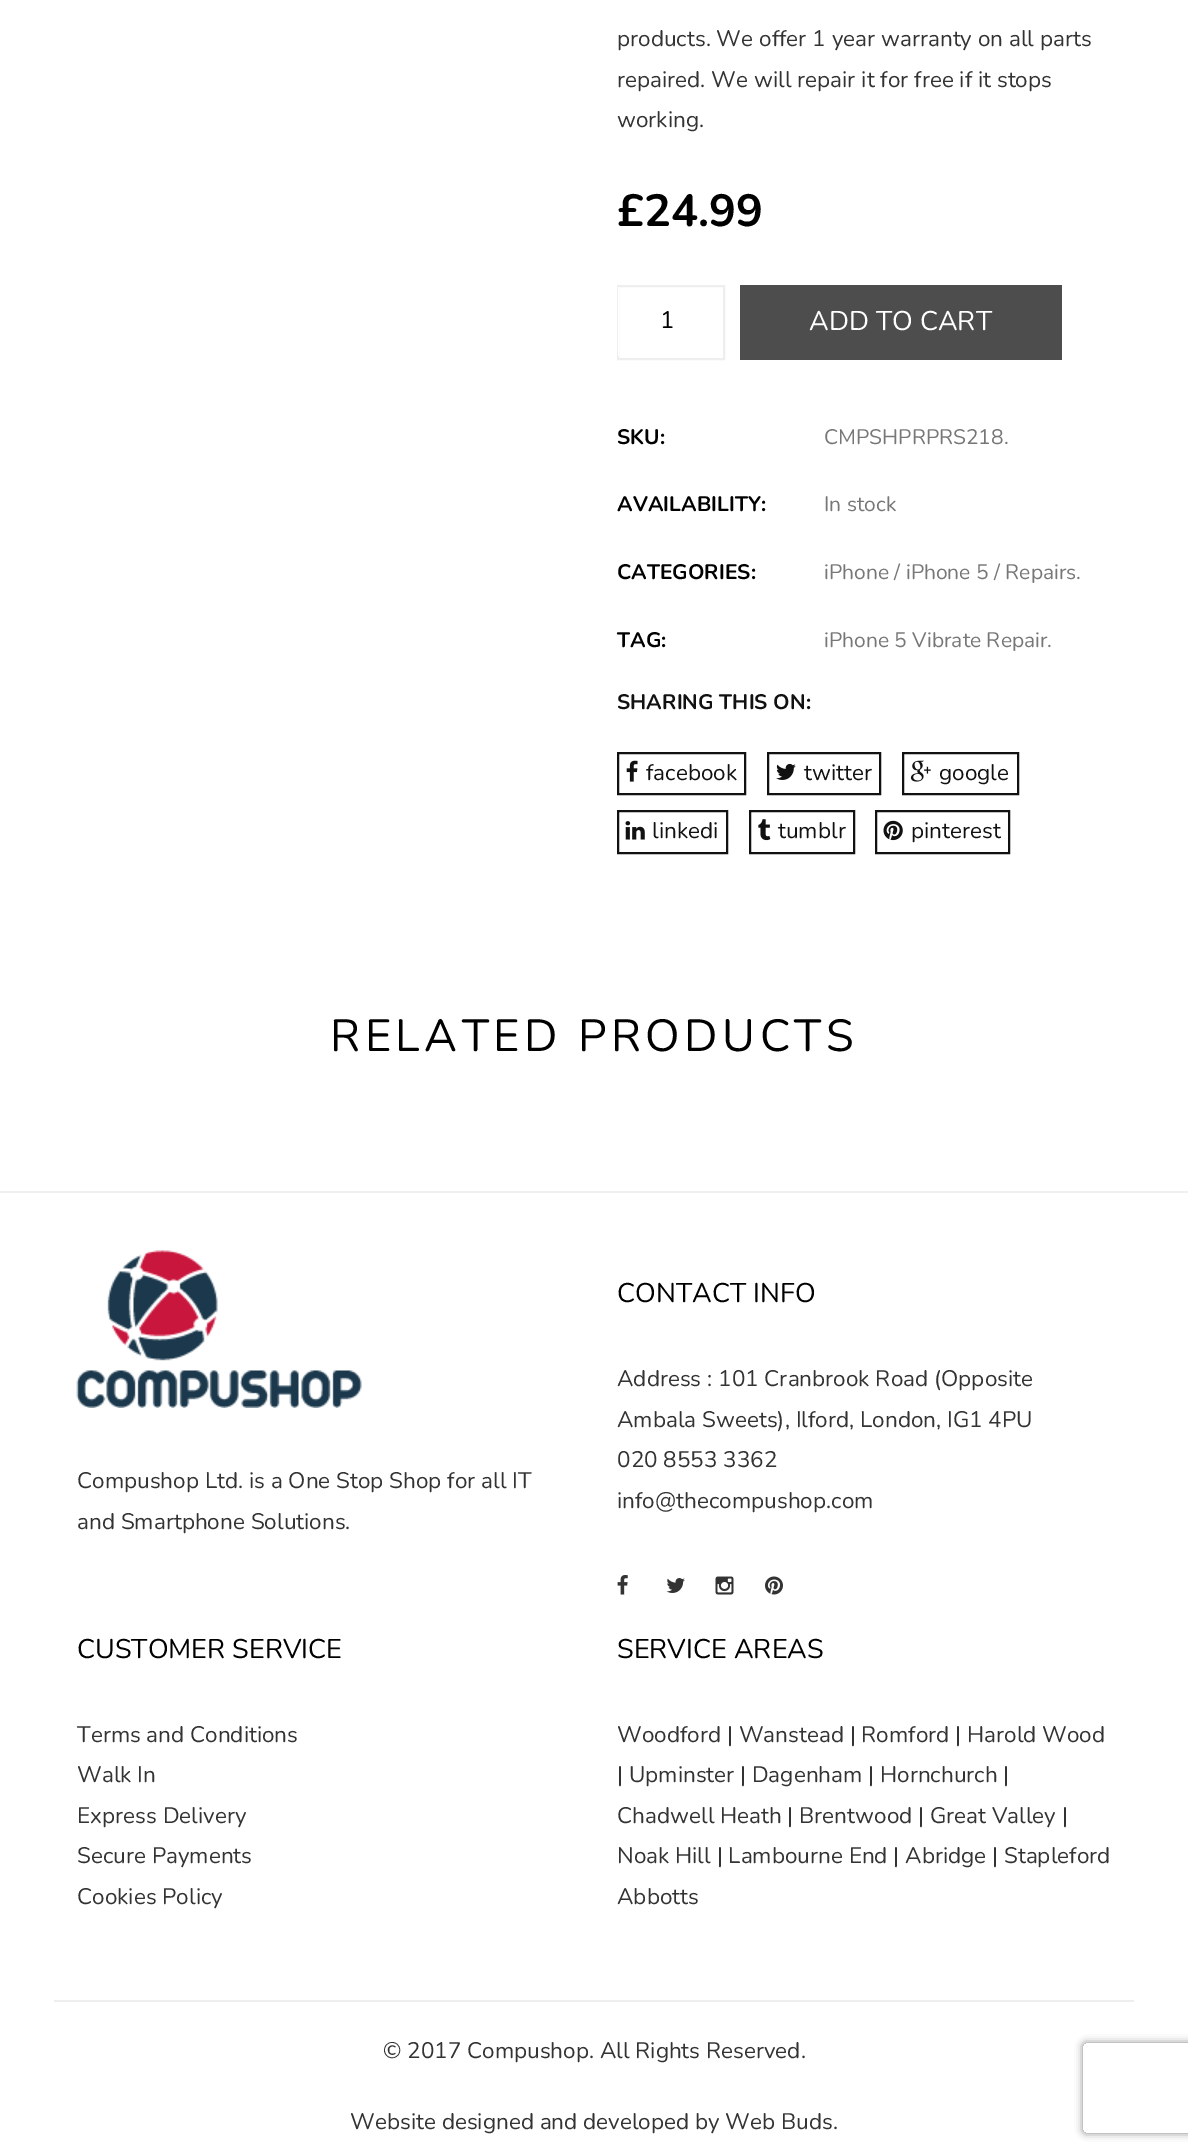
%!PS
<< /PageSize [1188 2153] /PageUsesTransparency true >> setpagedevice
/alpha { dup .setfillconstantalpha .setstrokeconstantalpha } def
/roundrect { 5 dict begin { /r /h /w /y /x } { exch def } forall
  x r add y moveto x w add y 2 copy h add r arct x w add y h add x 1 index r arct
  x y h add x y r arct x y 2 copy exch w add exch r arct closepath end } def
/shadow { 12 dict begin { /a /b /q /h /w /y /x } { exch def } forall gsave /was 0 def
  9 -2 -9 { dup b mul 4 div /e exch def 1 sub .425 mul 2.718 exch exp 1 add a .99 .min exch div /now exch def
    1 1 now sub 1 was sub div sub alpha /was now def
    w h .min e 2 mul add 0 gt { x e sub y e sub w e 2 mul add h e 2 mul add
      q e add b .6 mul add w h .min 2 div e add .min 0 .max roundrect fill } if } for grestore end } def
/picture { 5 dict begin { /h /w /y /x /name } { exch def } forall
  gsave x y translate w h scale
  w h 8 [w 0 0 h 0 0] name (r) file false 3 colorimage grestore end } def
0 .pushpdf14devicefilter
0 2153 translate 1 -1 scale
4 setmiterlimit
1 setgray
0 0 1188 2153 rectfill
/Nunito-Regular [22.5 0 0 -22.5 0 0] selectfont
0.2 setgray
617 46 moveto (products. We offer 1 year warranty on all parts) show
617 87 moveto (repaired. We will repair it for free if it stops) show
617 127 moveto (working.) show
/Nunito-Bold [45 0 0 -45 0 0] selectfont
0 setgray
617 226 moveto (£24.99) show
0.933 setgray
2 setlinewidth
618 286 106 73 rectstroke
1 setgray
618 287 1 69 rectfill
/Nunito-Regular [24 0 0 -24 0 0] selectfont
0 setgray
660 328 moveto (1) show
0.302 setgray
740 285 322 75 rectfill
/Nunito-Regular [27 0 0 -27 0 0] selectfont
1 setgray
809 330 moveto (ADD TO CART) show
/Nunito-Bold [21 0 0 -21 0 0] selectfont
0 setgray
617 444 moveto (SKU:) show
/Nunito-Regular [21 0 0 -21 0 0] selectfont
0.467 setgray
824 444 moveto (CMPSHPRPRS218.) show
/Nunito-Bold [21 0 0 -21 0 0] selectfont
0 setgray
617 511 moveto (AVAILABILITY:) show
/Nunito-Regular [21 0 0 -21 0 0] selectfont
0.467 setgray
824 511 moveto (In stock) show
/Nunito-Bold [21 0 0 -21 0 0] selectfont
0 setgray
617 579 moveto (CATEGORIES:) show
/Nunito-Regular [21 0 0 -21 0 0] selectfont
0.467 setgray
824 579 moveto (iPhone / iPhone 5 / Repairs.) show
/Nunito-Bold [21 0 0 -21 0 0] selectfont
0 setgray
617 647 moveto (TAG:) show
/Nunito-Regular [21 0 0 -21 0 0] selectfont
0.467 setgray
824 647 moveto (iPhone 5 Vibrate Repair.) show
/Nunito-Bold [21 0 0 -21 0 0] selectfont
0.067 setgray
617 709 moveto (SHARING THIS ON:) show
618 753 127 41 rectstroke
(img1.rgb) 626 760 12 22 picture
/Nunito-Regular [22.5 0 0 -22.5 0 0] selectfont
646 780 moveto (facebook) show
768 753 112 41 rectstroke
(img2.rgb) 776 763 20 17 picture
804 780 moveto (twitter) show
903 753 115 41 rectstroke
(img3.rgb) 910 760 21 22 picture
939 780 moveto (google) show
618 811 109 42 rectstroke
(img4.rgb) 625 821 20 19 picture
652 838 moveto (linkedi) show
750 811 104 42 rectstroke
(img5.rgb) 758 819 13 22 picture
778 838 moveto (tumblr) show
876 811 133 42 rectstroke
(img6.rgb) 883 820 20 21 picture
911 838 moveto (pinterest) show
/Nunito-Regular [45 0 0 -45 0 0] selectfont
0 setgray
330 1051 moveto 4.5 0 (RELATED PRODUCTS) ashow
0.941 setgray
0 1191 1188 2 rectfill
(img7.rgb) 76 1250 286 158 picture
/Nunito-Regular [22.5 0 0 -22.5 0 0] selectfont
0.2 setgray
77 1488 moveto (Compushop Ltd. is a One Stop Shop for all IT) show
77 1529 moveto (and Smartphone Solutions.) show
/Nunito-Regular [27 0 0 -27 0 0] selectfont
0 setgray
617 1302 moveto (CONTACT INFO) show
/Nunito-Regular [22.5 0 0 -22.5 0 0] selectfont
0.2 setgray
617 1386 moveto (Address : 101 Cranbrook Road \(Opposite) show
617 1427 moveto (Ambala Sweets\), Ilford, London, IG1 4PU) show
617 1467 moveto (020 8553 3362) show
617 1508 moveto (info@thecompushop.com) show
(img8.rgb) 617 1575 11 20 picture
(img9.rgb) 666 1578 19 15 picture
(img10.rgb) 715 1576 19 19 picture
(img11.rgb) 765 1576 18 19 picture
/Nunito-Regular [27 0 0 -27 0 0] selectfont
0 setgray
77 1658 moveto (CUSTOMER SERVICE) show
/Nunito-Regular [22.5 0 0 -22.5 0 0] selectfont
0.2 setgray
77 1742 moveto (Terms and Conditions) show
77 1782 moveto (Walk In) show
77 1823 moveto (Express Delivery) show
77 1863 moveto (Secure Payments) show
77 1904 moveto (Cookies Policy) show
/Nunito-Regular [27 0 0 -27 0 0] selectfont
0 setgray
617 1658 moveto (SERVICE AREAS) show
/Nunito-Regular [22.5 0 0 -22.5 0 0] selectfont
0.2 setgray
617 1742 moveto (Woodford | Wanstead | Romford | Harold Wood) show
617 1782 moveto (| Upminster | Dagenham | Hornchurch |) show
617 1823 moveto (Chadwell Heath | Brentwood | Great Valley |) show
617 1863 moveto (Noak Hill | Lambourne End | Abridge | Stapleford) show
617 1904 moveto (Abbotts) show
0.933 setgray
54 2000 1080 2 rectfill
0.2 setgray
383 2058 moveto (© 2017 Compushop. All Rights Reserved.) show
350 2129 moveto (Website designed and developed by Web Buds.) show
gsave
newpath 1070 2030 moveto 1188 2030 lineto 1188 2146 lineto 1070 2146 lineto closepath 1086 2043 moveto 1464 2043 lineto 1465.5 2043 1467 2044.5 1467 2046 curveto 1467 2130 lineto 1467 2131.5 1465.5 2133 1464 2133 curveto 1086 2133 lineto 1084.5 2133 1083 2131.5 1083 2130 curveto 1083 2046 lineto 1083 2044.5 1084.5 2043 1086 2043 curveto closepath eoclip newpath
0.502 setgray
1083 2043 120 90 3 4 1 shadow
grestore
.poppdf14devicefilter showpage
